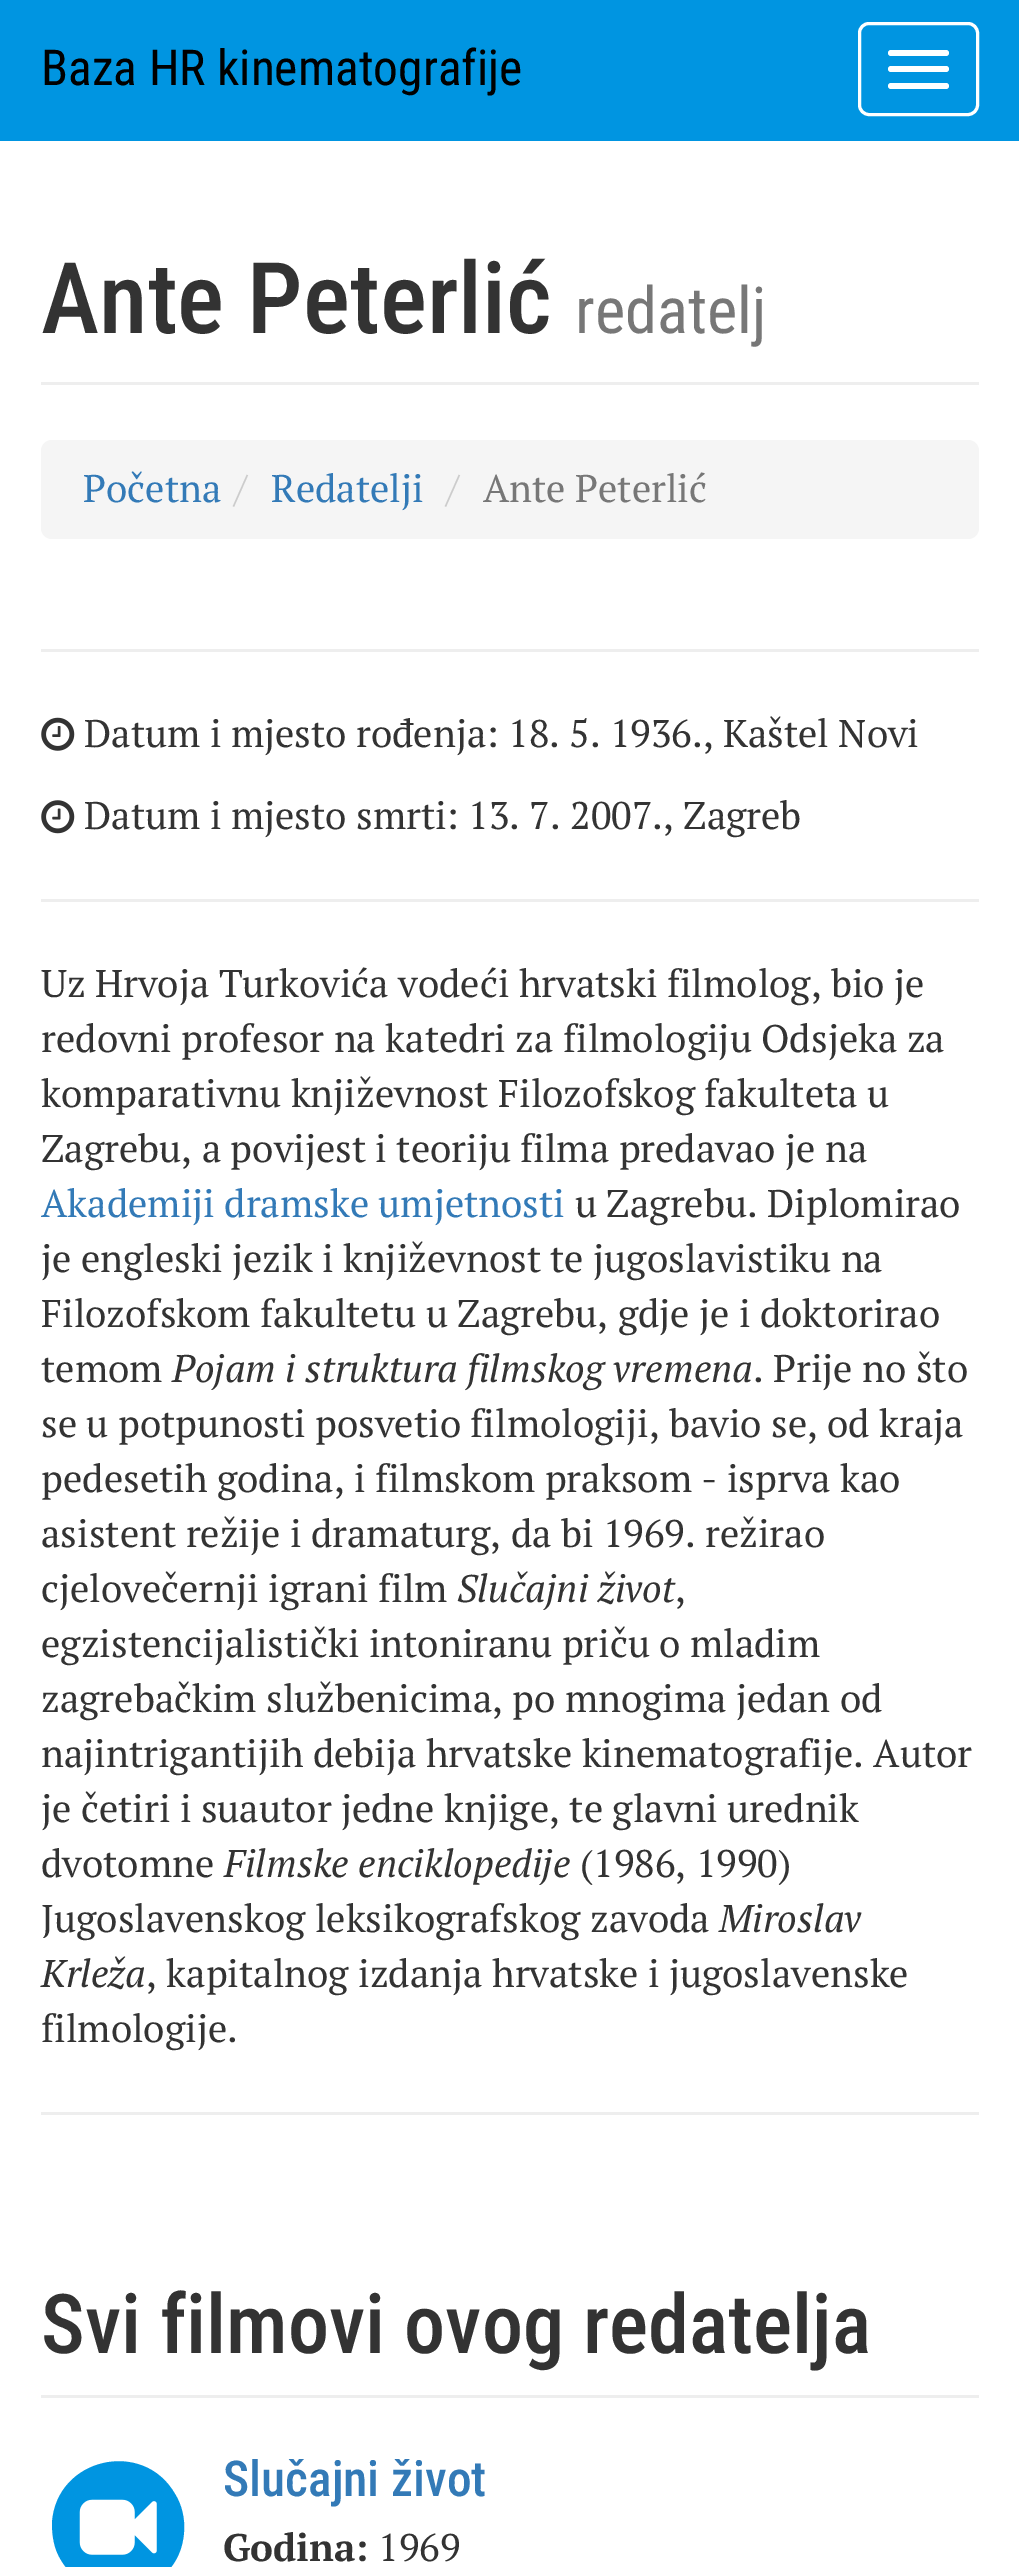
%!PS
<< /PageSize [1019 2567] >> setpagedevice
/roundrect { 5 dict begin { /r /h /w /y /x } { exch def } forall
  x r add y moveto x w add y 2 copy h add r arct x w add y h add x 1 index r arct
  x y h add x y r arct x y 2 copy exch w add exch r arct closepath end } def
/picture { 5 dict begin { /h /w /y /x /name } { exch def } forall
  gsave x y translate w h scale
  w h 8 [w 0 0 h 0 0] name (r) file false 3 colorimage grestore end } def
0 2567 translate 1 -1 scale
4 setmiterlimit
1 setgray
0 0 1019 2567 rectfill
0 0.584 0.882 setrgbcolor
0 0 1019 141 rectfill
/RobotoCondensed-Regular [49.5 0 0 -49.5 0 0] selectfont
0 setgray
41 85 moveto (Baza HR kinematografije) show
1 setgray
3 setlinewidth
859.5 23.5 118 91 9.5 roundrect stroke
888 50 61 6 3 roundrect fill
888 66 61 6 3 roundrect fill
888 83 61 6 3 roundrect fill
0.933 setgray
41 382 938 3 rectfill
/RobotoCondensed-Medium [99 0 0 -99 0 0] selectfont
0.2 setgray
41 333 moveto (Ante Peterlić) show
/RobotoCondensed-Regular [64.5 0 0 -64.5 0 0] selectfont
0.467 setgray
575 333 moveto (redatelj) show
0.961 setgray
41 440 938 99 11 roundrect fill
/PTSerif-Regular [38.5 0 0 -38.5 0 0] selectfont
0.2 0.478 0.718 setrgbcolor
83 502 moveto (Početna) show
0.8 setgray
234 502 moveto (/) show
0.2 0.478 0.718 setrgbcolor
271 502 moveto (Redatelji) show
0.8 setgray
446 502 moveto (/) show
0.467 setgray
483 502 moveto (Ante Peterlić) show
0.933 setgray
41 649 938 3 rectfill
(img1.rgb) 41 717 34 34 picture
0.2 setgray
84 747 moveto (Datum i mjesto rođenja: 18. 5. 1936., Kaštel Novi) show
(img2.rgb) 41 800 34 34 picture
84 829 moveto (Datum i mjesto smrti: 13. 7. 2007., Zagreb) show
0.933 setgray
41 899 938 3 rectfill
0.2 setgray
41 997 moveto (Uz Hrvoja Turkovića vodeći hrvatski filmolog, bio je) show
41 1052 moveto (redovni profesor na katedri za filmologiju Odsjeka za) show
41 1107 moveto (komparativnu književnost Filozofskog fakulteta u) show
41 1162 moveto (Zagrebu, a povijest i teoriju filma predavao je na) show
0.2 0.478 0.718 setrgbcolor
41 1217 moveto (Akademiji dramske umjetnosti) show
0.2 setgray
575 1217 moveto (u Zagrebu. Diplomirao) show
41 1272 moveto (je engleski jezik i književnost te jugoslavistiku na) show
41 1327 moveto (Filozofskom fakultetu u Zagrebu, gdje je i doktorirao) show
41 1382 moveto (temom) show
/PTSerif-Italic [38.5 0 0 -38.5 0 0] selectfont
172 1382 moveto (Pojam i struktura filmskog vremena) show
/PTSerif-Regular [38.5 0 0 -38.5 0 0] selectfont
753 1382 moveto (. Prije no što) show
41 1437 moveto (se u potpunosti posvetio filmologiji, bavio se, od kraja) show
41 1492 moveto (pedesetih godina, i filmskom praksom - isprva kao) show
41 1547 moveto (asistent režije i dramaturg, da bi 1969. režirao) show
41 1602 moveto (cjelovečernji igrani film) show
/PTSerif-Italic [38.5 0 0 -38.5 0 0] selectfont
457 1602 moveto (Slučajni život) show
/PTSerif-Regular [38.5 0 0 -38.5 0 0] selectfont
675 1602 moveto (,) show
41 1657 moveto (egzistencijalistički intoniranu priču o mladim) show
41 1712 moveto (zagrebačkim službenicima, po mnogima jedan od) show
41 1767 moveto (najintrigantijih debija hrvatske kinematografije. Autor) show
41 1822 moveto (je četiri i suautor jedne knjige, te glavni urednik) show
41 1877 moveto (dvotomne) show
/PTSerif-Italic [38.5 0 0 -38.5 0 0] selectfont
224 1877 moveto (Filmske enciklopedije) show
/PTSerif-Regular [38.5 0 0 -38.5 0 0] selectfont
580 1877 moveto (\(1986, 1990\)) show
41 1932 moveto (Jugoslavenskog leksikografskog zavoda) show
/PTSerif-Italic [38.5 0 0 -38.5 0 0] selectfont
719 1932 moveto (Miroslav) show
41 1987 moveto (Krleža) show
/PTSerif-Regular [38.5 0 0 -38.5 0 0] selectfont
146 1987 moveto (, kapitalnog izdanja hrvatske i jugoslavenske) show
41 2042 moveto (filmologije.) show
0.933 setgray
41 2112 938 3 rectfill
41 2395 938 3 rectfill
/RobotoCondensed-Medium [82.5 0 0 -82.5 0 0] selectfont
0.2 setgray
41 2353 moveto (Svi filmovi ovog redatelja) show
0 0.584 0.882 setrgbcolor
newpath 175 2494 moveto 182 2505 185 2519 184 2532 curveto 180 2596 94 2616 61 2560 curveto 54 2549 52 2536 52 2523 curveto 56 2458 143 2438 175 2494 curveto closepath fill
(img3.rgb) 79 2499 78 56 picture
/RobotoCondensed-Medium [49.5 0 0 -49.5 0 0] selectfont
0.2 0.478 0.718 setrgbcolor
223 2496 moveto (Slučajni život) show
/PTSerif-Bold [38.5 0 0 -38.5 0 0] selectfont
0.2 setgray
223 2561 moveto (Godina:) show
/PTSerif-Regular [38.5 0 0 -38.5 0 0] selectfont
378 2561 moveto (1969) show
showpage
